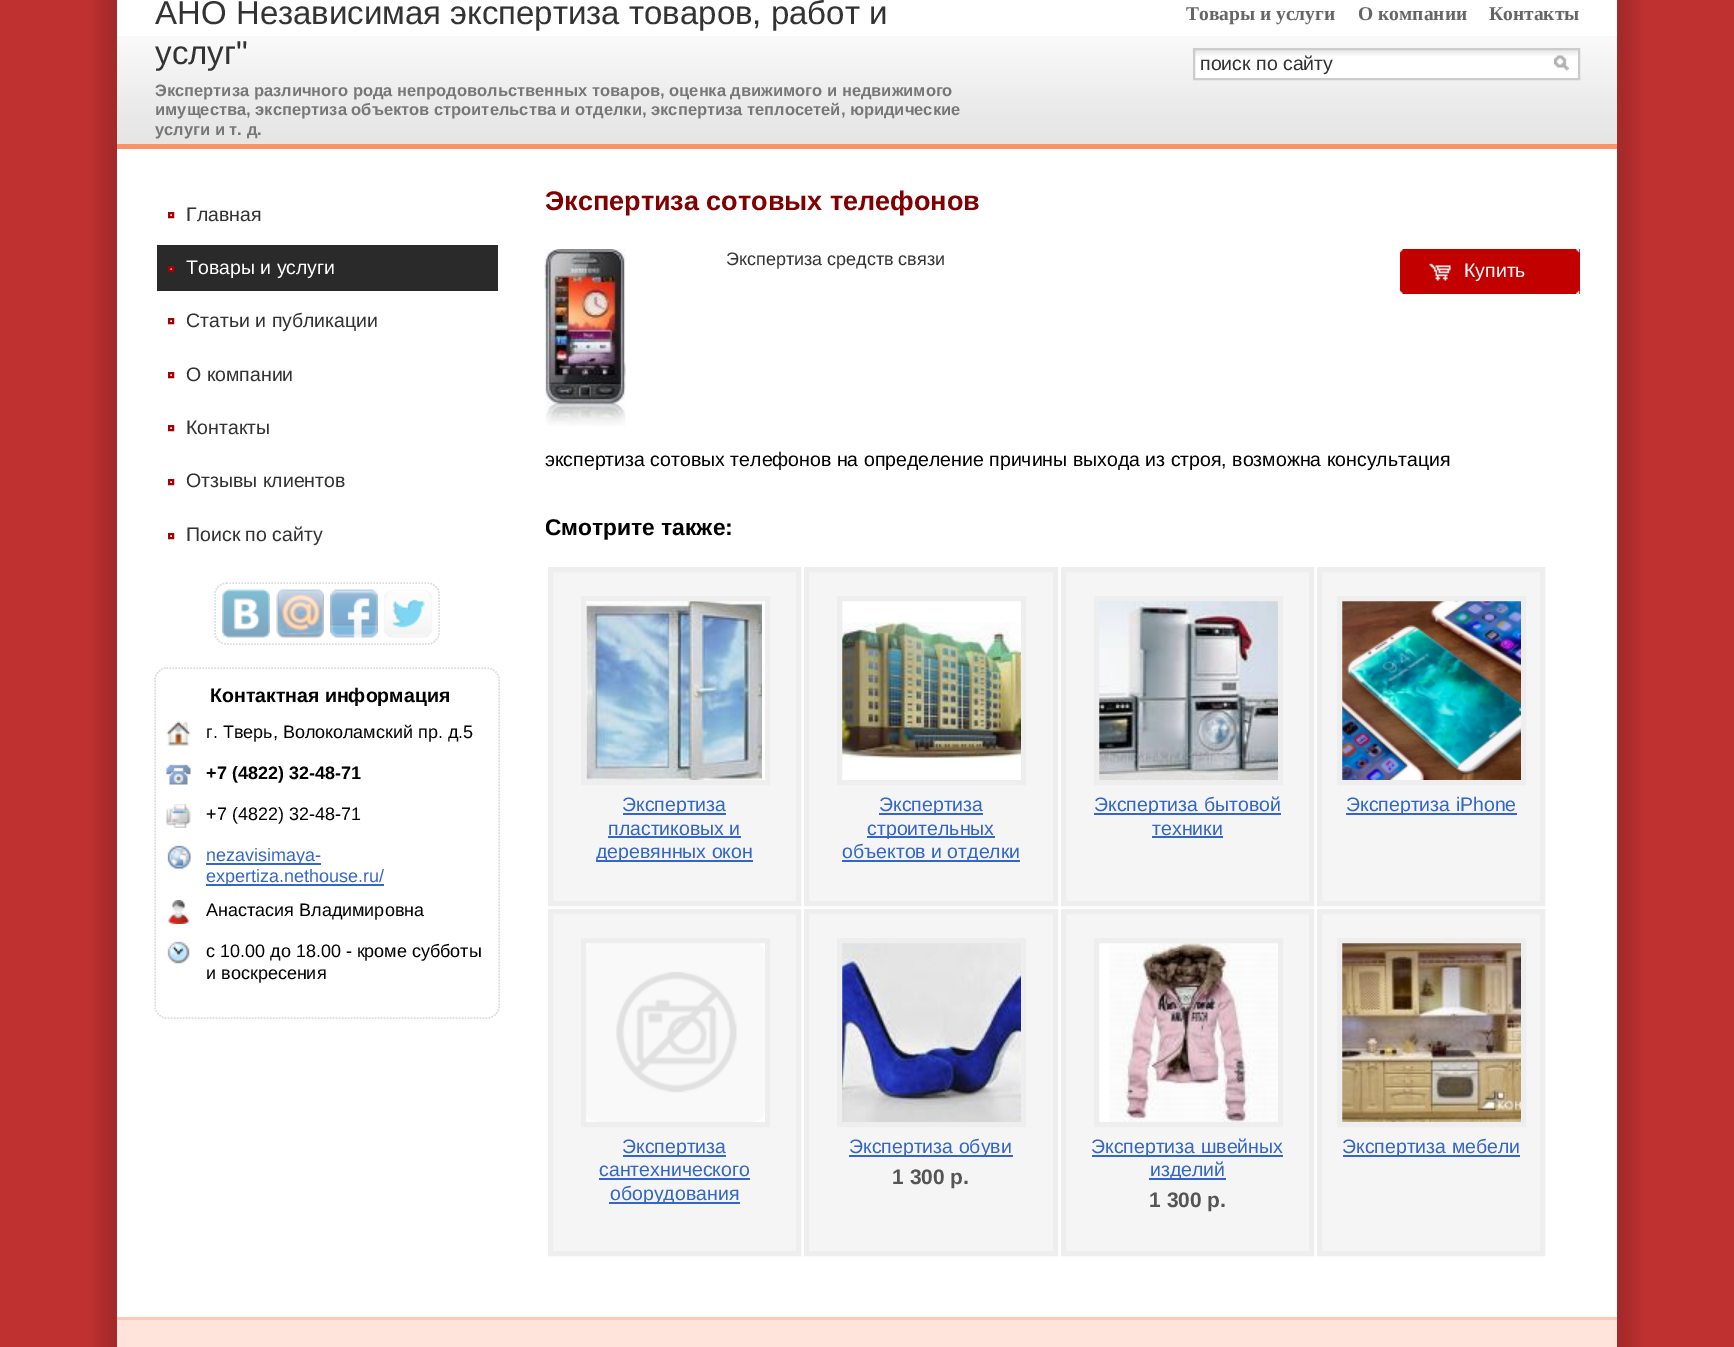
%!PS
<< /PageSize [1734 1347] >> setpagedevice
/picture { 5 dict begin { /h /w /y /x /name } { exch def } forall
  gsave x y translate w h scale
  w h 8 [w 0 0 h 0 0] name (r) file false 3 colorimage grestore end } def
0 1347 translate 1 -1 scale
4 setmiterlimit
0.749 0.188 0.188 setrgbcolor
0 0 1734 1347 rectfill
(img1.rgb) 93 0 1548 1347 picture
1 setgray
117 0 1500 1317 rectfill
(img2.rgb) 117 36 1500 108 picture
1 0.569 0.412 setrgbcolor
117 144 1500 5 rectfill
/LiberationSans-Regular [33 0 0 -33 0 0] selectfont
0.2 setgray
155 24 moveto (АНО Независимая экспертиза товаров, работ и) show
155 64 moveto (услуг") show
/LiberationSans-Bold [16.5 0 0 -16.5 0 0] selectfont
0.467 setgray
155 96 moveto (Экспертиза различного рода непродовольственных товаров, оценка движимого и недвижимого) show
155 115 moveto (имущества, экспертиза объектов строительства и отделки, экспертиза теплосетей, юридические) show
155 135 moveto (услуги и т. д.) show
/LiberationSerif-Bold [19.5 0 0 -19.5 0 0] selectfont
0.4 setgray
1186 20 moveto (Товары и услуги) show
1358 20 moveto (О компании) show
1489 20 moveto (Контакты) show
1 setgray
1195 56 383 22 rectfill
(img3.rgb) 1192 49 386 7 picture
0.8 setgray
2 setlinewidth
1194 49 385 30 rectstroke
/LiberationSans-Regular [19.5 0 0 -19.5 0 0] selectfont
0.2 setgray
1200 70 moveto (поиск по сайту) show
(img4.rgb) 1554 55 15 16 picture
0.651 0 0 setrgbcolor
169 213 4 4 rectstroke
0.2 setgray
186 221 moveto (Главная) show
0.165 setgray
157 245 341 46 rectfill
1 0.569 0.412 setrgbcolor
newpath 169 267 moveto 173 267 lineto 173 271 lineto 169 271 lineto closepath gsave fill grestore
0.651 0 0 setrgbcolor
stroke
1 setgray
186 274 moveto (Товары и услуги) show
0.651 0 0 setrgbcolor
169 319 4 4 rectstroke
0.2 setgray
186 327 moveto (Статьи и публикации) show
0.651 0 0 setrgbcolor
169 373 4 4 rectstroke
0.2 setgray
186 381 moveto (О компании) show
0.651 0 0 setrgbcolor
169 426 4 4 rectstroke
0.2 setgray
186 434 moveto (Контакты) show
0.651 0 0 setrgbcolor
169 480 4 4 rectstroke
0.2 setgray
186 487 moveto (Отзывы клиентов) show
0.651 0 0 setrgbcolor
169 534 4 4 rectstroke
0.2 setgray
186 541 moveto (Поиск по сайту) show
0.867 setgray
1.5 setlinewidth
[1.5 1.5] 0 setdash
newpath 226.5 583 moveto 427.5 583 lineto 433.5 583 439 588 439 594 curveto 439 633 lineto 439 639 433.5 644 427.5 644 curveto 226.5 644 lineto 220.5 644 215 639 215 633 curveto 215 594 lineto 215 588 220.5 583 226.5 583 curveto closepath stroke
(img5.rgb) 222 589 48 49 picture
(img6.rgb) 276 589 48 49 picture
(img7.rgb) 330 589 48 49 picture
(img8.rgb) 384 590 48 48 picture
newpath 166.5 668 moveto 487.5 668 lineto 493.5 668 499 673.5 499 679.5 curveto 499 1006.5 lineto 499 1012.5 493.5 1018 487.5 1018 curveto 166.5 1018 lineto 160.5 1018 155 1012.5 155 1006.5 curveto 155 679.5 lineto 155 673.5 160.5 668 166.5 668 curveto closepath stroke
/LiberationSans-Bold [19.5 0 0 -19.5 0 0] selectfont
0 setgray
210 702 moveto (Контактная информация) show
(img9.rgb) 166 721 25 25 picture
/LiberationSans-Regular [18 0 0 -18 0 0] selectfont
206 738 moveto (г. Тверь, Волоколамский пр. д.5) show
(img10.rgb) 166 764 25 21 picture
/LiberationSans-Bold [18 0 0 -18 0 0] selectfont
206 779 moveto (+7 \(4822\) 32-48-71) show
(img11.rgb) 166 804 25 24 picture
/LiberationSans-Regular [18 0 0 -18 0 0] selectfont
206 820 moveto (+7 \(4822\) 32-48-71) show
(img12.rgb) 167 845 24 24 picture
0.2 0.4 0.8 setrgbcolor
206 863 115 2 rectfill
206 861 moveto (nezavisimaya-) show
206 884 178 2 rectfill
206 882 moveto (expertiza.nethouse.ru/) show
(img13.rgb) 167 900 23 24 picture
0 setgray
206 916 moveto (Анастасия Владимировна) show
(img14.rgb) 167 941 23 23 picture
206 957 moveto (с 10.00 до 18.00 - кроме субботы) show
206 979 moveto (и воскресения) show
/LiberationSans-Bold [27 0 0 -27 0 0] selectfont
0.51 0 0 setrgbcolor
545 210 moveto (Экспертиза сотовых телефонов) show
(img15.rgb) 544 249 82 177 picture
/LiberationSans-Regular [18 0 0 -18 0 0] selectfont
0.2 setgray
726 265 moveto (Экспертиза средств связи) show
0.761 0 0 setrgbcolor
1400 249 180 45 rectfill
(img16.rgb) 1576 249 4 45 picture
(img17.rgb) 1400 249 3 45 picture
(img18.rgb) 1429 263 22 18 picture
/LiberationSans-Regular [19.5 0 0 -19.5 0 0] selectfont
1 setgray
1464 277 moveto (Купить) show
0 setgray
545 466 moveto (экспертиза сотовых телефонов на определение причины выхода из строя, возможна консультация) show
/LiberationSans-Bold [22.75 0 0 -22.75 0 0] selectfont
545 535 moveto (Смотрите также:) show
0.961 setgray
newpath 550.5 569.5 moveto 798.5 569.5 lineto 798.5 903.5 lineto 550.5 903.5 lineto closepath gsave fill grestore
0.933 setgray
5 setlinewidth
[] 0 setdash
stroke
1 setgray
586 601 179 179 rectfill
(img19.rgb) 586 601 176 179 picture
0.933 setgray
583.5 598.5 184 184 rectstroke
0.2 0.4 0.8 setrgbcolor
623 813 103 2 rectfill
/LiberationSans-Regular [19.5 0 0 -19.5 0 0] selectfont
622 811 moveto (Экспертиза) show
608 835 moveto (пластиковых и) show
608 836 133 2 rectfill
596 860 157 2 rectfill
596 858 moveto (деревянных окон) show
0.961 setgray
newpath 806.5 569.5 moveto 1055.5 569.5 lineto 1055.5 903.5 lineto 806.5 903.5 lineto closepath gsave fill grestore
0.933 setgray
stroke
1 setgray
842 601 179 179 rectfill
(img20.rgb) 842 622 179 136 picture
0.933 setgray
839.5 598.5 184 184 rectstroke
0.2 0.4 0.8 setrgbcolor
879 813 104 2 rectfill
879 811 moveto (Экспертиза) show
867 836 128 2 rectfill
867 835 moveto (строительных) show
842 860 178 2 rectfill
842 858 moveto (объектов и отделки) show
0.961 setgray
newpath 1063.5 569.5 moveto 1311.5 569.5 lineto 1311.5 903.5 lineto 1063.5 903.5 lineto closepath gsave fill grestore
0.933 setgray
stroke
(img21.rgb) 1099 601 179 179 picture
1096.5 598.5 184 184 rectstroke
0.2 0.4 0.8 setrgbcolor
1094 813 187 2 rectfill
1094 811 moveto (Экспертиза бытовой) show
1152 835 moveto (техники) show
1152 836 71 2 rectfill
0.961 setgray
newpath 1319.5 569.5 moveto 1542.5 569.5 lineto 1542.5 903.5 lineto 1319.5 903.5 lineto closepath gsave fill grestore
0.933 setgray
stroke
(img22.rgb) 1342 601 179 179 picture
1339.5 598.5 184 184 rectstroke
0.2 0.4 0.8 setrgbcolor
1346 813 171 2 rectfill
1346 811 moveto (Экспертиза iPhone) show
0.961 setgray
newpath 550.5 911.5 moveto 798.5 911.5 lineto 798.5 1253.5 lineto 550.5 1253.5 lineto closepath gsave fill grestore
0.933 setgray
stroke
(img23.rgb) 586 943 179 179 picture
583.5 940.5 184 184 rectstroke
0.2 0.4 0.8 setrgbcolor
623 1155 103 2 rectfill
622 1153 moveto (Экспертиза) show
599 1176 moveto (сантехнического) show
599 1178 151 2 rectfill
609 1202 131 2 rectfill
610 1200 moveto (оборудования) show
0.961 setgray
newpath 806.5 911.5 moveto 1055.5 911.5 lineto 1055.5 1253.5 lineto 806.5 1253.5 lineto closepath gsave fill grestore
0.933 setgray
stroke
(img24.rgb) 842 943 179 179 picture
839.5 940.5 184 184 rectstroke
0.2 0.4 0.8 setrgbcolor
849 1155 164 2 rectfill
849 1153 moveto (Экспертиза обуви) show
/LiberationSans-Bold [21 0 0 -21 0 0] selectfont
0.333 setgray
892 1184 moveto (1 300 р.) show
0.961 setgray
newpath 1063.5 911.5 moveto 1311.5 911.5 lineto 1311.5 1253.5 lineto 1063.5 1253.5 lineto closepath gsave fill grestore
0.933 setgray
stroke
1 setgray
1099 943 10 179 rectfill
(img25.rgb) 1109 943 169 179 picture
0.933 setgray
1096.5 940.5 184 184 rectstroke
0.2 0.4 0.8 setrgbcolor
1092 1155 191 2 rectfill
/LiberationSans-Regular [19.5 0 0 -19.5 0 0] selectfont
1091 1153 moveto (Экспертиза швейных) show
1149 1178 77 2 rectfill
1150 1176 moveto (изделий) show
/LiberationSans-Bold [21 0 0 -21 0 0] selectfont
0.333 setgray
1149 1207 moveto (1 300 р.) show
0.961 setgray
newpath 1319.5 911.5 moveto 1542.5 911.5 lineto 1542.5 1253.5 lineto 1319.5 1253.5 lineto closepath gsave fill grestore
0.933 setgray
stroke
(img26.rgb) 1342 943 179 179 picture
1339.5 940.5 184 184 rectstroke
0.2 0.4 0.8 setrgbcolor
1343 1155 177 2 rectfill
/LiberationSans-Regular [19.5 0 0 -19.5 0 0] selectfont
1342 1153 moveto (Экспертиза мебели) show
1 0.894 0.859 setrgbcolor
117 1320 1500 27 rectfill
1 0.784 0.71 setrgbcolor
117 1317 1500 3 rectfill
showpage
